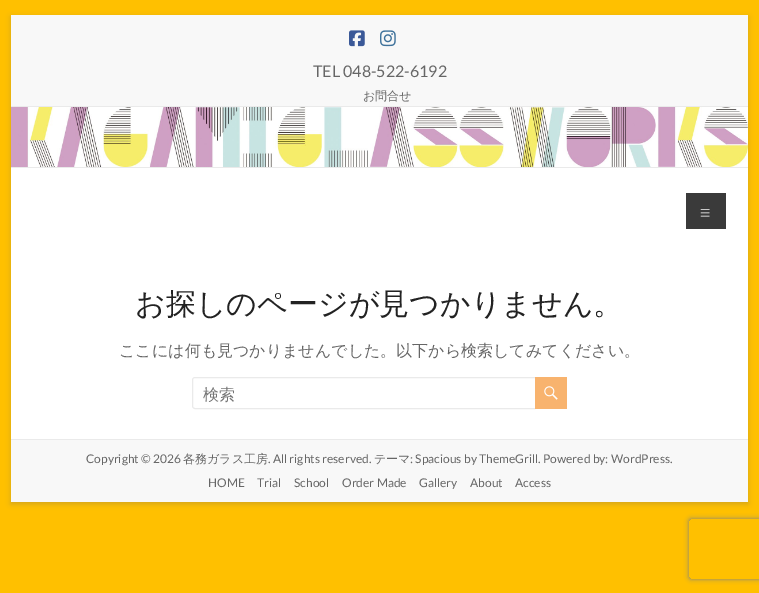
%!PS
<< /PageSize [759 593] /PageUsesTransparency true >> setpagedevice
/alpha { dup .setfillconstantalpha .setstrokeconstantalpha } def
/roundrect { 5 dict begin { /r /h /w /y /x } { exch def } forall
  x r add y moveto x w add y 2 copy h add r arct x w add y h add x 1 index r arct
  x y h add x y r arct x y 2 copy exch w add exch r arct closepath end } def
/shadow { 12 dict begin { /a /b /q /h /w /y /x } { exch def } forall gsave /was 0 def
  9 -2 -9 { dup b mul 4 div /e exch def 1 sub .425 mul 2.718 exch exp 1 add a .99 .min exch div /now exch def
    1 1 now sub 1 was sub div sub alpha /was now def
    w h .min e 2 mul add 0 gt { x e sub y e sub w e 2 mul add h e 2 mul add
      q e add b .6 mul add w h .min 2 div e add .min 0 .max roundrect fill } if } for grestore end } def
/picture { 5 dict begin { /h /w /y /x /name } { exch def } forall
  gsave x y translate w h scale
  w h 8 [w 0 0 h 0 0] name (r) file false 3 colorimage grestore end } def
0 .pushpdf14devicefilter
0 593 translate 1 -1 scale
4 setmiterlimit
1 0.753 0 setrgbcolor
0 0 759 593 rectfill
0.392 setgray
11 17 737 487 0 3 0.3 shadow
1 setgray
11 168 737 271 rectfill
0.973 setgray
11 15 737 91 rectfill
0.918 setgray
11 106 737 1 rectfill
(img1.rgb) 349 30 16 17 picture
(img2.rgb) 380 30 16 17 picture
/Lato-Regular [16 0 0 -16 0 0] selectfont
0.4 setgray
313 77 moveto (TEL 048-522-6192) show
/WenQuanYiZenHei-Medium [12 0 0 -12 0 0] selectfont
363 100 moveto (お問合せ) show
(img3.rgb) 11 107 737 60 picture
0.918 setgray
11 167 737 1 rectfill
0.227 setgray
686 193 40 36 rectfill
/Lato-Light [21 0 0 -21 0 0] selectfont
1 setgray
699 220 moveto (≡) show
/WenQuanYiZenHei-Medium [30 0 0 -30 0 0] selectfont
0.133 setgray
135 314 moveto (お探しのページが見つかりません。) show
/WenQuanYiZenHei-Medium [16 0 0 -16 0 0] selectfont
0.4 setgray
119 356 moveto (ここには何も見つかりませんでした。以下から検索してみてください。) show
0.918 setgray
192.5 377.5 345 31 2.5 roundrect stroke
0.459 setgray
203 400 moveto (検索) show
0.973 0.702 0.431 setrgbcolor
535 377 32 32 rectfill
(img4.rgb) 544 386 14 14 picture
0.973 setgray
11 440 737 62 rectfill
0.918 setgray
11 439 737 1 rectfill
/Lato-Regular [12 0 0 -12 0 0] selectfont
0.4 setgray
86 463 moveto (Copyright © 2026) show
/WenQuanYiZenHei-Medium [12 0 0 -12 0 0] selectfont
183 463 moveto (各務ガラス工房) show
/Lato-Regular [12 0 0 -12 0 0] selectfont
268 463 moveto (. All rights reserved.) show
/WenQuanYiZenHei-Medium [12 0 0 -12 0 0] selectfont
374 463 moveto (テーマ) show
/Lato-Regular [12 0 0 -12 0 0] selectfont
410 463 moveto (: Spacious by ThemeGrill. Powered by: WordPress.) show
208 487 moveto (HOME) show
257 487 moveto (Trial) show
294 487 moveto (School) show
342 487 moveto (Order Made) show
419 487 moveto (Gallery) show
470 487 moveto (About) show
515 487 moveto (Access) show
gsave
newpath 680 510 moveto 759 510 lineto 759 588 lineto 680 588 lineto closepath 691 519 moveto 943 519 lineto 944 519 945 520 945 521 curveto 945 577 lineto 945 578 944 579 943 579 curveto 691 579 lineto 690 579 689 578 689 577 curveto 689 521 lineto 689 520 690 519 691 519 curveto closepath eoclip newpath
0.502 setgray
689 519 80 60 2 2.5 1 shadow
grestore
.poppdf14devicefilter showpage
